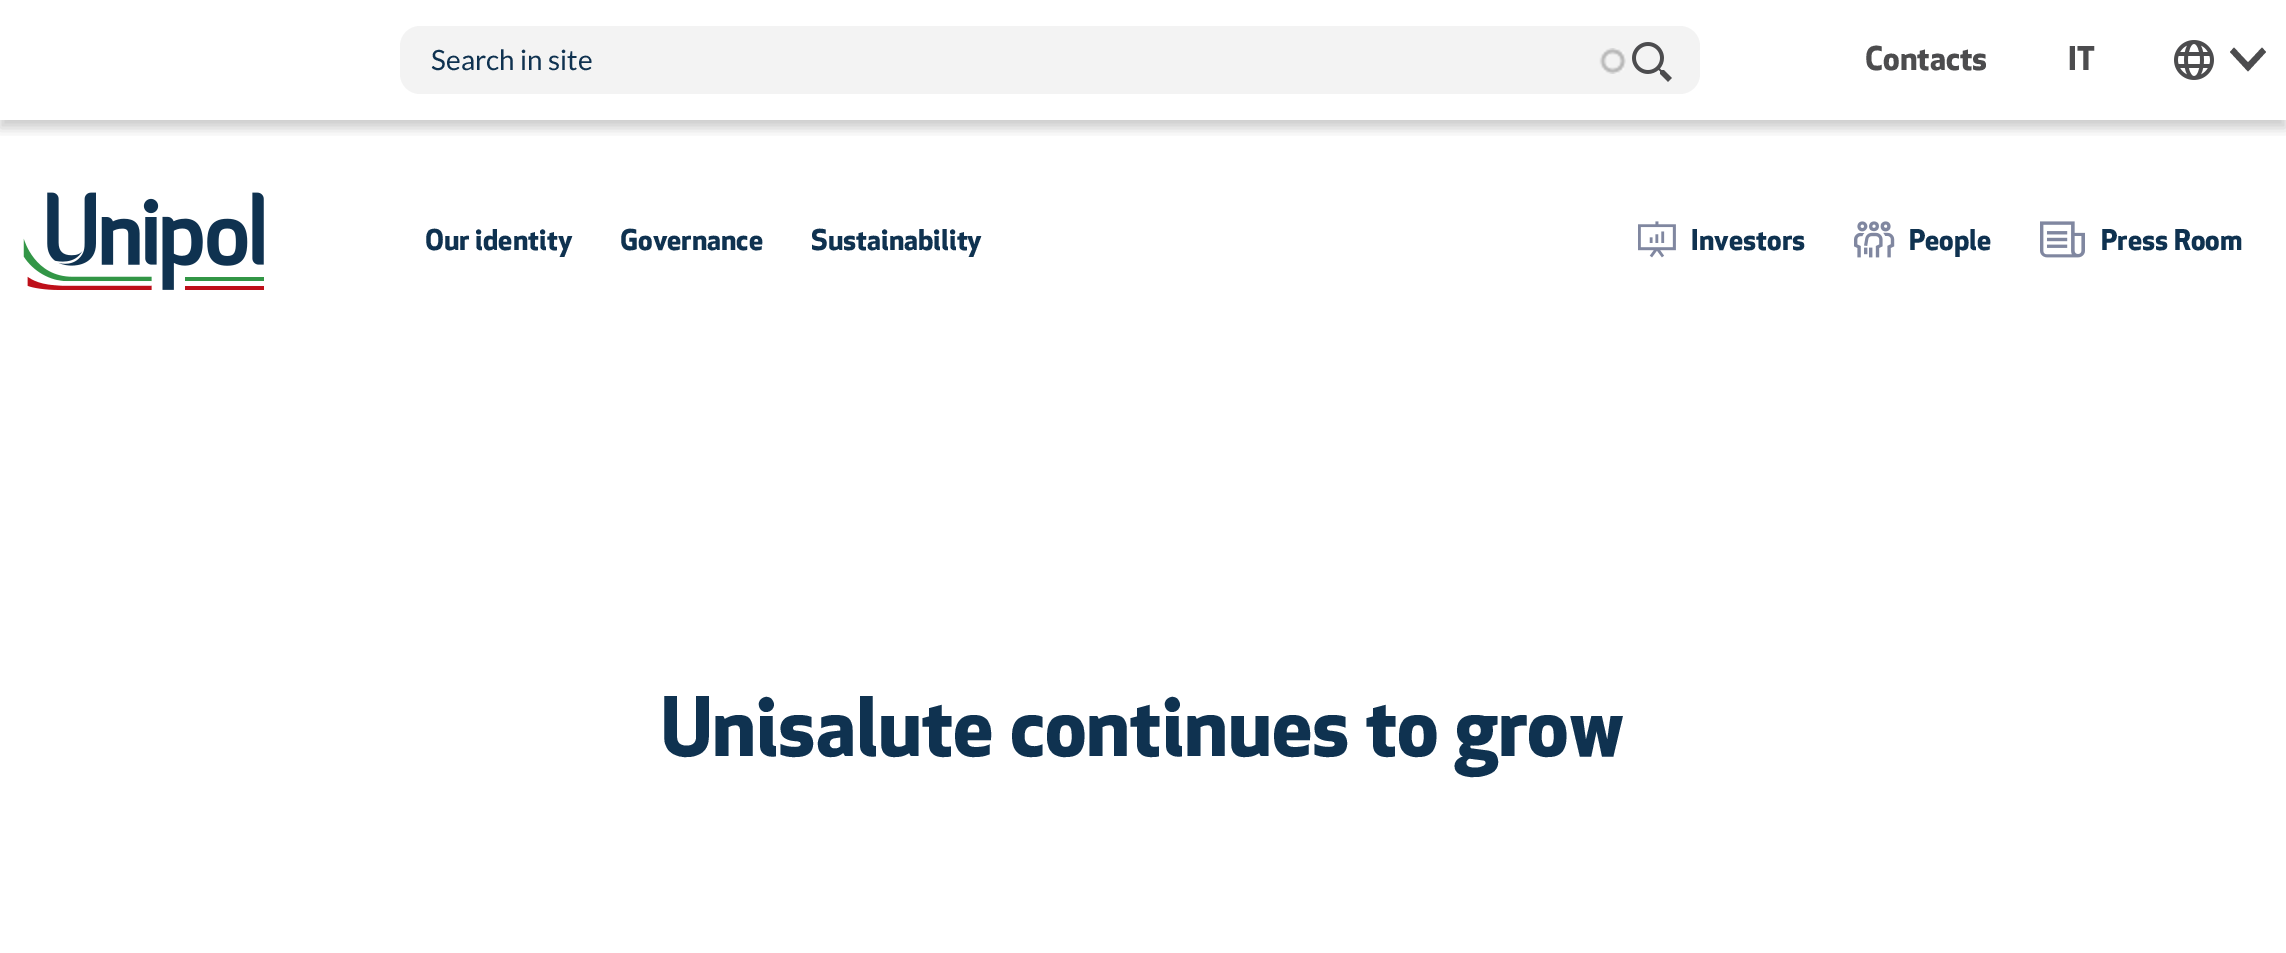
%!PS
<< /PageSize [2286 953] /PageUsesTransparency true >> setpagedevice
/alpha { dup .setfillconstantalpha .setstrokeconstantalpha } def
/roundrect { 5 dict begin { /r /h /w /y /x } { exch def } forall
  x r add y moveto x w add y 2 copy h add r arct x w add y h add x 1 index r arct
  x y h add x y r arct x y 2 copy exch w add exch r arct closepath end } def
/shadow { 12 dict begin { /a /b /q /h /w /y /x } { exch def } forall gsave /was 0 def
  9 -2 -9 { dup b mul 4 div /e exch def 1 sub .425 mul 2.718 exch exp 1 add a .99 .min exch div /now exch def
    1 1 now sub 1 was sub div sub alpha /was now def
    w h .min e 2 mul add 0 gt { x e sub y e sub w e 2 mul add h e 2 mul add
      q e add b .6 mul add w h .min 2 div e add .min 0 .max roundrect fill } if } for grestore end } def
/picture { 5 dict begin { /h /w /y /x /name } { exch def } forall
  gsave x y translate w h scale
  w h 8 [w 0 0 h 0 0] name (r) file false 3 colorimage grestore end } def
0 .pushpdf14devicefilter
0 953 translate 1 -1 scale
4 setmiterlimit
1 setgray
0 0 2286 953 rectfill
gsave
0 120 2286 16 rectclip
0 setgray
0 8 2286 120 0 6 0.2 shadow
grestore
0.953 setgray
400 26 1300 68 20 roundrect fill
(img1.rgb) 1599 48 27 26 picture
/Lato-Regular [28 0 0 -28 0 0] selectfont
0.059 0.196 0.314 setrgbcolor
431 70 moveto (Search in site) show
(img2.rgb) 1632 42 40 40 picture
/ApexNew-Bold [32 0 0 -32 0 0] selectfont
0.298 0.298 0.306 setrgbcolor
1865 70 moveto (Contacts) show
2068 70 moveto (IT) show
(img3.rgb) 2174 40 40 40 picture
newpath 2262 47.5 moveto 2266 52 lineto 2248 71.5 lineto 2230 52 lineto 2234 47.5 lineto 2248 62.5 lineto closepath fill
(img4.rgb) 23 192 241 98 picture
/ApexNew-Bold [28 0 0 -28 0 0] selectfont
0.059 0.196 0.314 setrgbcolor
425 250 moveto (Our identity) show
620 250 moveto (Governance) show
811 250 moveto (Sustainability) show
(img5.rgb) 1638 221 38 37 picture
1691 250 moveto (Investors) show
(img6.rgb) 1854 221 41 37 picture
1909 250 moveto (People) show
(img7.rgb) 2040 221 45 37 picture
2101 250 moveto (Press Room) show
/ApexNew-Bold [80 0 0 -80 0 0] selectfont
661 756 moveto (Unisalute continues to grow) show
.poppdf14devicefilter showpage
